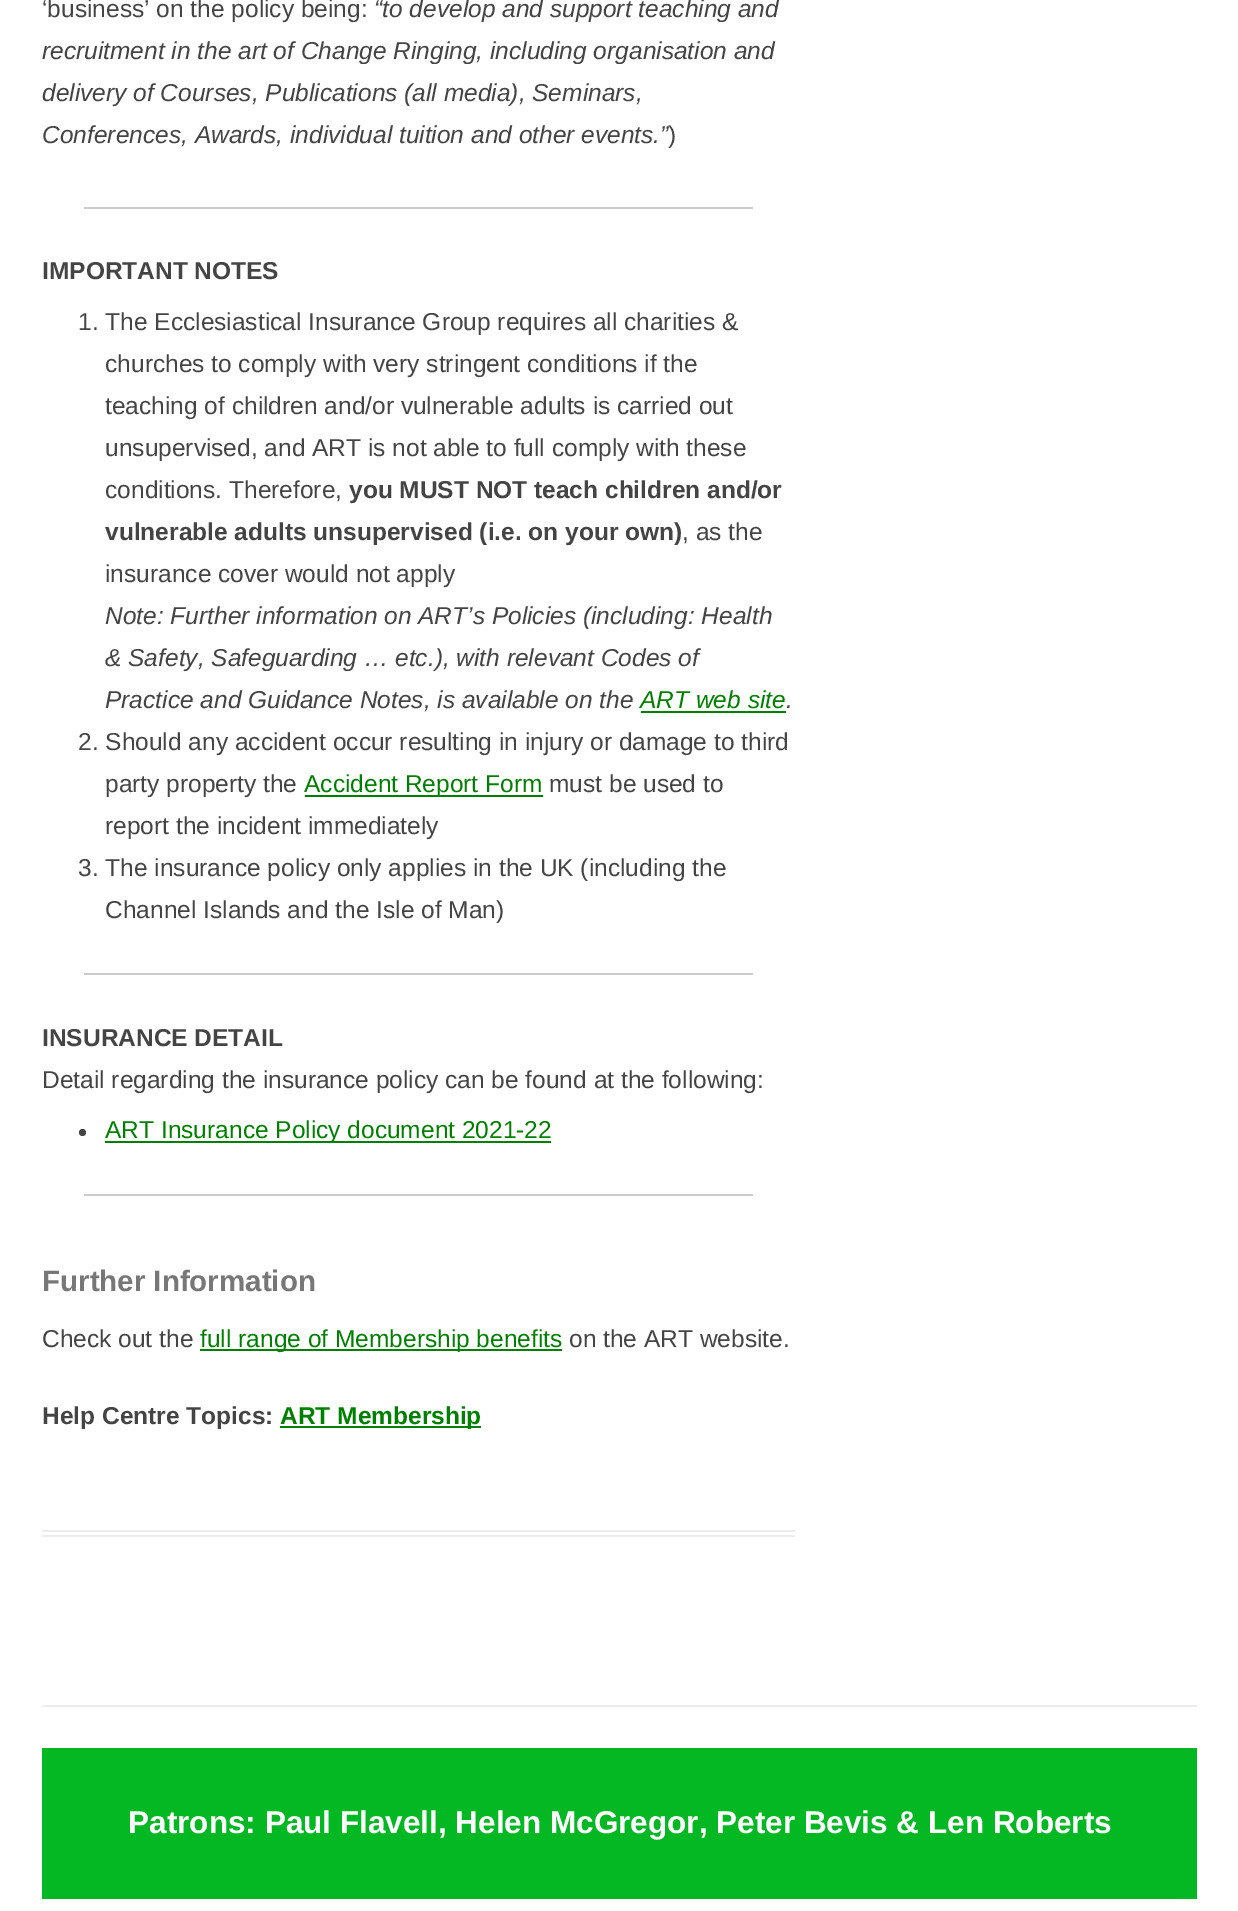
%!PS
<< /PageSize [1238 1911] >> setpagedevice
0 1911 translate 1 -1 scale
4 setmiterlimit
1 setgray
0 0 1238 1911 rectfill
0.929 setgray
42 1530 753 2 rectfill
42 1535 753 2 rectfill
/LiberationSans-Regular [24.5 0 0 -24.5 0 0] selectfont
0.267 setgray
42 17 moveto (‘business’ on the policy being:) show
/LiberationSans-Italic [24.5 0 0 -24.5 0 0] selectfont
374 17 moveto (“to develop and support teaching and) show
42 59 moveto (recruitment in the art of Change Ringing, including organisation and) show
42 101 moveto (delivery of Courses, Publications \(all media\), Seminars,) show
42 143 moveto (Conferences, Awards, individual tuition and other events.”) show
/LiberationSans-Regular [24.5 0 0 -24.5 0 0] selectfont
668 143 moveto (\)) show
0.8 setgray
84 207 669 2 rectfill
/LiberationSans-Bold [24.5 0 0 -24.5 0 0] selectfont
0.267 setgray
42 279 moveto (IMPORTANT NOTES) show
/LiberationSans-Regular [24.5 0 0 -24.5 0 0] selectfont
78 330 moveto (1. The Ecclesiastical Insurance Group requires all charities &) show
105 372 moveto (churches to comply with very stringent conditions if the) show
105 414 moveto (teaching of children and/or vulnerable adults is carried out) show
105 456 moveto (unsupervised, and ART is not able to full comply with these) show
105 498 moveto (conditions. Therefore,) show
/LiberationSans-Bold [24.5 0 0 -24.5 0 0] selectfont
349 498 moveto (you MUST NOT teach children and/or) show
105 540 moveto (vulnerable adults unsupervised \(i.e. on your own\)) show
/LiberationSans-Regular [24.5 0 0 -24.5 0 0] selectfont
682 540 moveto (, as the) show
105 582 moveto (insurance cover would not apply) show
/LiberationSans-Italic [24.5 0 0 -24.5 0 0] selectfont
105 624 moveto (Note: Further information on ART’s Policies \(including: Health) show
105 666 moveto (& Safety, Safeguarding … etc.\), with relevant Codes of) show
105 708 moveto (Practice and Guidance Notes, is available on the) show
0 0.502 0 setrgbcolor
640 708 moveto (ART web site) show
0.267 setgray
786 708 moveto (.) show
0 0.502 0 setrgbcolor
641 711 145 2 rectfill
/LiberationSans-Regular [24.5 0 0 -24.5 0 0] selectfont
0.267 setgray
78 750 moveto (2. Should any accident occur resulting in injury or damage to third) show
105 792 moveto (party property the) show
0 0.502 0 setrgbcolor
305 795 238 2 rectfill
304 792 moveto (Accident Report Form) show
0.267 setgray
549 792 moveto (must be used to) show
105 834 moveto (report the incident immediately) show
78 876 moveto (3. The insurance policy only applies in the UK \(including the) show
105 918 moveto (Channel Islands and the Isle of Man\)) show
0.8 setgray
84 973 669 2 rectfill
/LiberationSans-Bold [24.5 0 0 -24.5 0 0] selectfont
0.267 setgray
42 1046 moveto (INSURANCE DETAIL) show
/LiberationSans-Regular [24.5 0 0 -24.5 0 0] selectfont
42 1088 moveto (Detail regarding the insurance policy can be found at the following:) show
newpath 82.5 1132.5 3.5 0 360 arc closepath fill
0 0.502 0 setrgbcolor
105 1141 446 2 rectfill
105 1138 moveto (ART Insurance Policy document 2021-22) show
0.8 setgray
84 1194 669 2 rectfill
/LiberationSans-Bold [29.5 0 0 -29.5 0 0] selectfont
0.467 setgray
42 1291 moveto (Further Information) show
/LiberationSans-Regular [24.5 0 0 -24.5 0 0] selectfont
0.267 setgray
42 1347 moveto (Check out the) show
0 0.502 0 setrgbcolor
200 1349 362 2 rectfill
200 1347 moveto (full range of Membership benefits) show
0.267 setgray
569 1347 moveto (on the ART website.) show
/LiberationSans-Bold [24.5 0 0 -24.5 0 0] selectfont
42 1424 moveto (Help Centre Topics:) show
0 0.502 0 setrgbcolor
280 1426 201 2 rectfill
280 1424 moveto (ART Membership) show
0.929 setgray
42 1705 1155 2 rectfill
0.012 0.722 0.137 setrgbcolor
42 1748 1155 151 rectfill
/LiberationSans-Bold [31.5 0 0 -31.5 0 0] selectfont
1 setgray
128 1833 moveto (Patrons: Paul Flavell, Helen McGregor, Peter Bevis & Len Roberts) show
showpage
